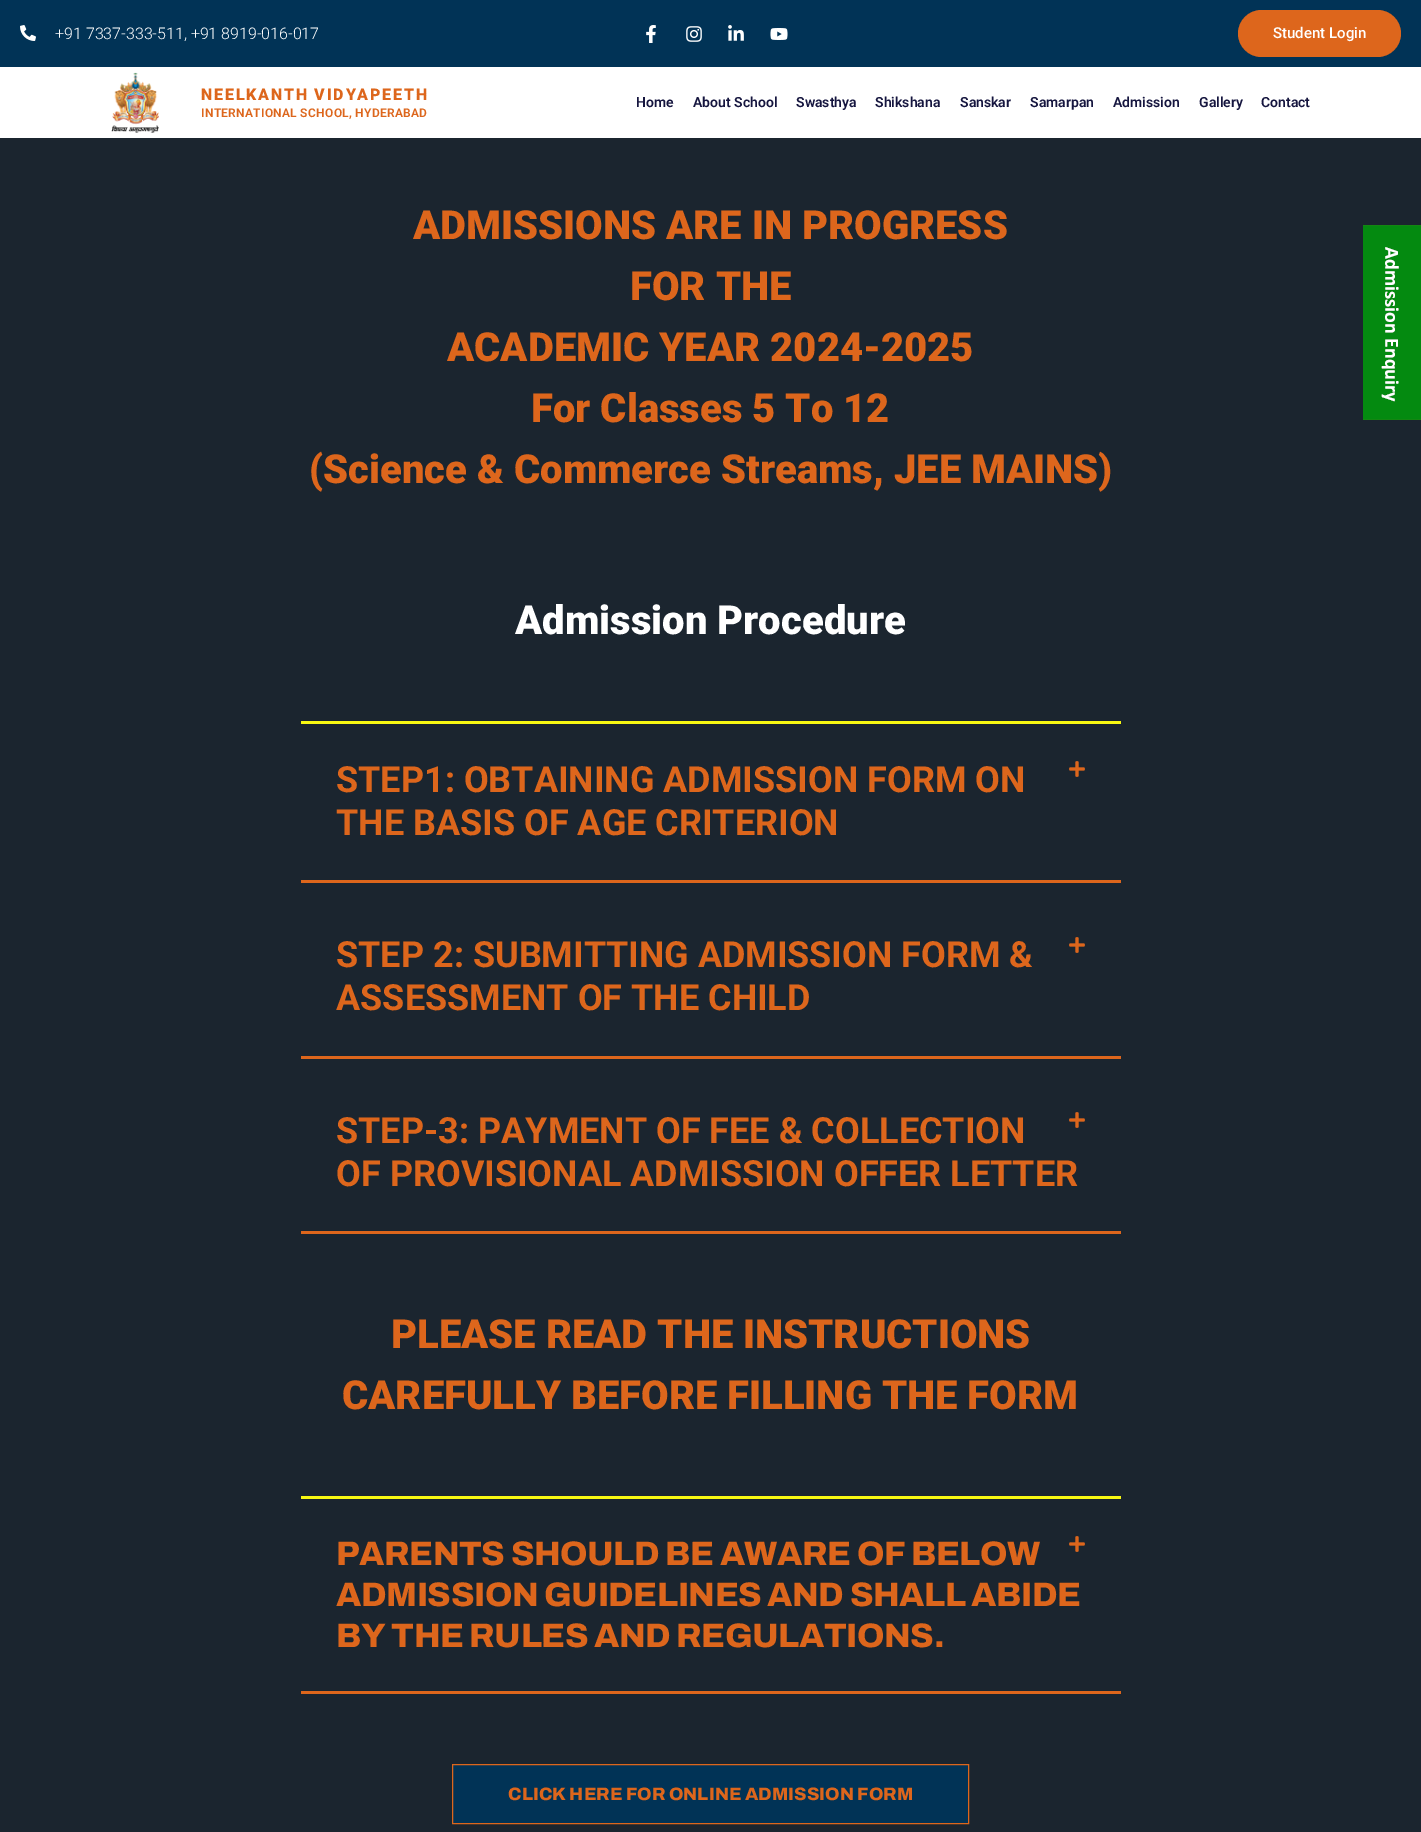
%!PS
<< /PageSize [1421 1832] >> setpagedevice
/roundrect { 5 dict begin { /r /h /w /y /x } { exch def } forall
  x r add y moveto x w add y 2 copy h add r arct x w add y h add x 1 index r arct
  x y h add x y r arct x y 2 copy exch w add exch r arct closepath end } def
/picture { 5 dict begin { /h /w /y /x /name } { exch def } forall
  gsave x y translate w h scale
  w h 8 [w 0 0 h 0 0] name (r) file false 3 colorimage grestore end } def
0 1832 translate 1 -1 scale
4 setmiterlimit
1 setgray
0 0 1421 1832 rectfill
0.004 0.2 0.337 setrgbcolor
0 0 1421 67 rectfill
(img1.rgb) 20 25 16 16 picture
/Roboto-Light [16 0 0 -16 0 0] selectfont
1 setgray
55 39 moveto (+91 7337-333-511, +91 8919-016-017) show
(img2.rgb) 646 25 10 18 picture
(img3.rgb) 686 26 16 16 picture
(img4.rgb) 728 25 16 16 picture
(img5.rgb) 770 28 18 12 picture
0.867 0.4 0.11 setrgbcolor
1238 10 163 47 23.5 roundrect fill
/Roboto-Medium [15 0 0 -15 0 0] selectfont
1 setgray
1273 38 moveto (Student Login) show
(img6.rgb) 111 72 48 61 picture
/Roboto-Black [16 0 0 -16 0 0] selectfont
0.867 0.4 0.11 setrgbcolor
201 100 moveto 1.8 0 (NEELKANTH VIDYAPEETH) ashow
/Roboto-SemiBold [12 0 0 -12 0 0] selectfont
201 117 moveto 0.3 0 (INTERNATIONAL SCHOOL, HYDERABAD) ashow
/Roboto-SemiBold [14 0 0 -14 0 0] selectfont
0.086 0.086 0.247 setrgbcolor
636 107 moveto (Home) show
693 107 moveto (About School) show
796 107 moveto (Swasthya) show
875 107 moveto (Shikshana) show
960 107 moveto (Sanskar) show
1030 107 moveto (Samarpan) show
1113 107 moveto (Admission) show
1199 107 moveto (Gallery) show
1261 107 moveto (Contact) show
0.106 0.145 0.184 setrgbcolor
0 138 1421 1694 rectfill
/Roboto-Black [40 0 0 -40 0 0] selectfont
0.867 0.4 0.11 setrgbcolor
413 239 moveto (ADMISSIONS ARE IN PROGRESS) show
630 300 moveto (FOR THE) show
447 361 moveto (ACADEMIC YEAR 2024-2025) show
531 422 moveto (For Classes 5 To 12) show
309 483 moveto (\(Science & Commerce Streams, JEE MAINS\)) show
1 setgray
515 634 moveto (Admission Procedure) show
0.973 0.973 0.071 setrgbcolor
301 721 820 3 rectfill
0.867 0.4 0.11 setrgbcolor
301 880 820 3 rectfill
/Roboto-Bold [36 0 0 -36 0 0] selectfont
336 792 moveto (STEP1: OBTAINING ADMISSION FORM ON) show
(img7.rgb) 1069 761 16 16 picture
336 835 moveto (THE BASIS OF AGE CRITERION) show
301 1056 820 3 rectfill
336 967 moveto (STEP 2: SUBMITTING ADMISSION FORM &) show
(img7.rgb) 1069 937 16 16 picture
336 1010 moveto (ASSESSMENT OF THE CHILD) show
301 1231 820 3 rectfill
336 1143 moveto (STEP-3: PAYMENT OF FEE & COLLECTION) show
(img7.rgb) 1069 1112 16 16 picture
336 1186 moveto (OF PROVISIONAL ADMISSION OFFER LETTER) show
/Roboto-Black [40 0 0 -40 0 0] selectfont
391 1348 moveto (PLEASE READ THE INSTRUCTIONS) show
342 1409 moveto (CAREFULLY BEFORE FILLING THE FORM) show
0.973 0.973 0.071 setrgbcolor
301 1496 820 3 rectfill
0.867 0.4 0.11 setrgbcolor
301 1691 820 3 rectfill
/Archivo-ExtraBold [34 0 0 -34 0 0] selectfont
336 1565 moveto -0.45 0 (PARENTS SHOULD BE AWARE OF BELOW) ashow
(img7.rgb) 1069 1536 16 16 picture
336 1606 moveto -0.45 0 (ADMISSION GUIDELINES AND SHALL ABIDE) ashow
336 1647 moveto -0.45 0 (BY THE RULES AND REGULATIONS.) ashow
0.004 0.2 0.337 setrgbcolor
newpath 452.5 1764.5 moveto 968.5 1764.5 lineto 968.5 1823.5 lineto 452.5 1823.5 lineto closepath gsave fill grestore
0.867 0.4 0.11 setrgbcolor
stroke
/Archivo-ExtraBold [18 0 0 -18 0 0] selectfont
508 1800 moveto (CLICK HERE FOR ONLINE ADMISSION FORM) show
(img8.rgb) 1363 225 58 195 picture
showpage
